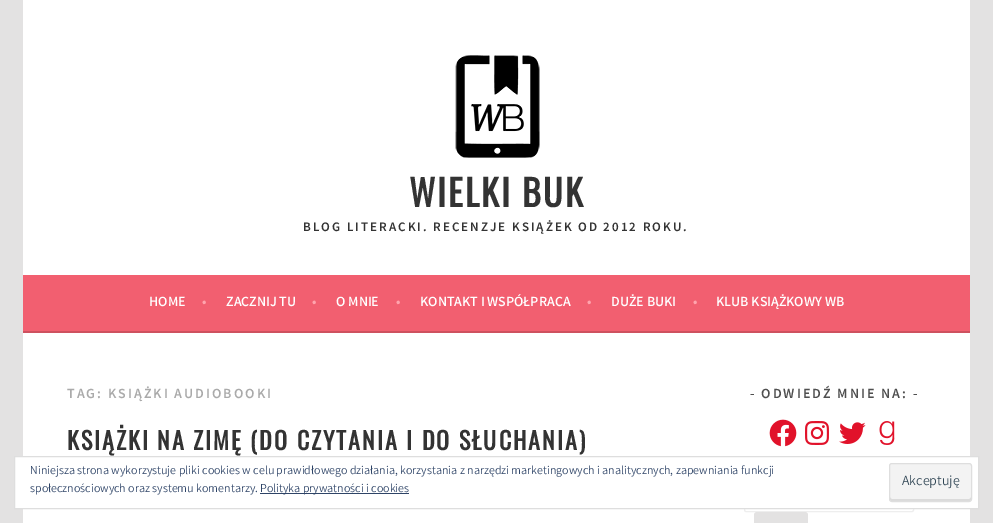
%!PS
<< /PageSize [993 523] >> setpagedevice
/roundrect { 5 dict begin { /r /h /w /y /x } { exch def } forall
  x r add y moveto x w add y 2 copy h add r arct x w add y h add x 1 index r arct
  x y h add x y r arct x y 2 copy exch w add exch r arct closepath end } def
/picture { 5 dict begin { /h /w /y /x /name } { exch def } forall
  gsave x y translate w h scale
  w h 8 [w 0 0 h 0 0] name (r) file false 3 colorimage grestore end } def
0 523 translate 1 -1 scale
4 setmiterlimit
0.89 0.886 0.886 setrgbcolor
0 0 993 523 rectfill
1 setgray
23 0 947 275 rectfill
(img1.rgb) 455 55 85 103 picture
/Oswald-Bold [36 0 0 -36 0 0] selectfont
0.2 setgray
409 207 moveto 2 0 (WIELKI BUK) ashow
/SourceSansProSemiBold-SemiBold [13 0 0 -13 0 0] selectfont
303 231 moveto 2 0 (BLOG LITERACKI. RECENZJE KSIĄŻEK OD 2012 ROKU.) ashow
0.949 0.373 0.439 setrgbcolor
23 275 947 56 rectfill
0.808 0.318 0.373 setrgbcolor
23 331 947 2 rectfill
/Varta-Bold [14 0 0 -14 0 0] selectfont
1 setgray
149 306 moveto (HOME) show
1 0.643 0.678 setrgbcolor
202 306 moveto (•) show
1 setgray
226 306 moveto (ZACZNIJ TU) show
1 0.643 0.678 setrgbcolor
312 306 moveto (•) show
1 setgray
336 306 moveto (O MNIE) show
1 0.643 0.678 setrgbcolor
396 306 moveto (•) show
1 setgray
420 306 moveto (KONTAKT I WSPÓŁPRACA) show
1 0.643 0.678 setrgbcolor
587 306 moveto (•) show
1 setgray
611 306 moveto (DUŻE BUKI) show
1 0.643 0.678 setrgbcolor
693 306 moveto (•) show
1 setgray
716 306 moveto (KLUB KSIĄŻKOWY WB) show
23 333 947 190 rectfill
/SourceSansProSemiBold-SemiBold [14 0 0 -14 0 0] selectfont
0.667 setgray
67 398 moveto 2 0 (TAG: KSIĄŻKI AUDIOBOOKI) ashow
/Oswald-Bold [24 0 0 -24 0 0] selectfont
0.2 setgray
67 450 moveto 2 0 (KSIĄŻKI NA ZIMĘ \(DO CZYTANIA I DO SŁUCHANIA\)) ashow
/SourceSansProSemiBold-SemiBold [14 0 0 -14 0 0] selectfont
0.31 setgray
750 398 moveto 2 0 (- ODWIEDŹ MNIE NA: -) ashow
(img2.rgb) 769 419 28 28 picture
(img3.rgb) 805 421 24 24 picture
(img4.rgb) 839 422 27 22 picture
(img5.rgb) 879 421 16 24 picture
0.933 setgray
744.5 473.5 169 38 1.5 roundrect stroke
0.89 0.886 0.886 setrgbcolor
754 512 54 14 3 roundrect fill
1 setgray
newpath 14.5 456.5 moveto 978.5 456.5 lineto 978.5 508.5 lineto 14.5 508.5 lineto closepath gsave fill grestore
0.871 setgray
stroke
/Varta-Light [12 0 0 -12 0 0] selectfont
0.18 0.267 0.404 setrgbcolor
30 474 moveto (Niniejsza strona wykorzystuje pliki cookies w celu prawidłowego działania, korzystania z narzędzi marketingowych i analitycznych, zapewniania funkcji) show
30 492 moveto (społecznościowych oraz systemu komentarzy.) show
260 493 149 1 rectfill
260 492 moveto (Polityka prywatności i cookies) show
0.953 setgray
889 463 83 39 3 roundrect fill
0.859 setgray
newpath 890 497 moveto 890 499 lineto 890 500 891 501 892 501 curveto 969 501 lineto 970 501 971 500 971 499 curveto 971 497 lineto 971 498 970 499 969 499 curveto 892 499 lineto 891 499 890 498 890 497 curveto closepath fill
0.871 setgray
889.5 463.5 82 38 2.5 roundrect stroke
/Varta-Light [14 0 0 -14 0 0] selectfont
0.18 0.267 0.325 setrgbcolor
902 485 moveto (Akceptuję) show
showpage
